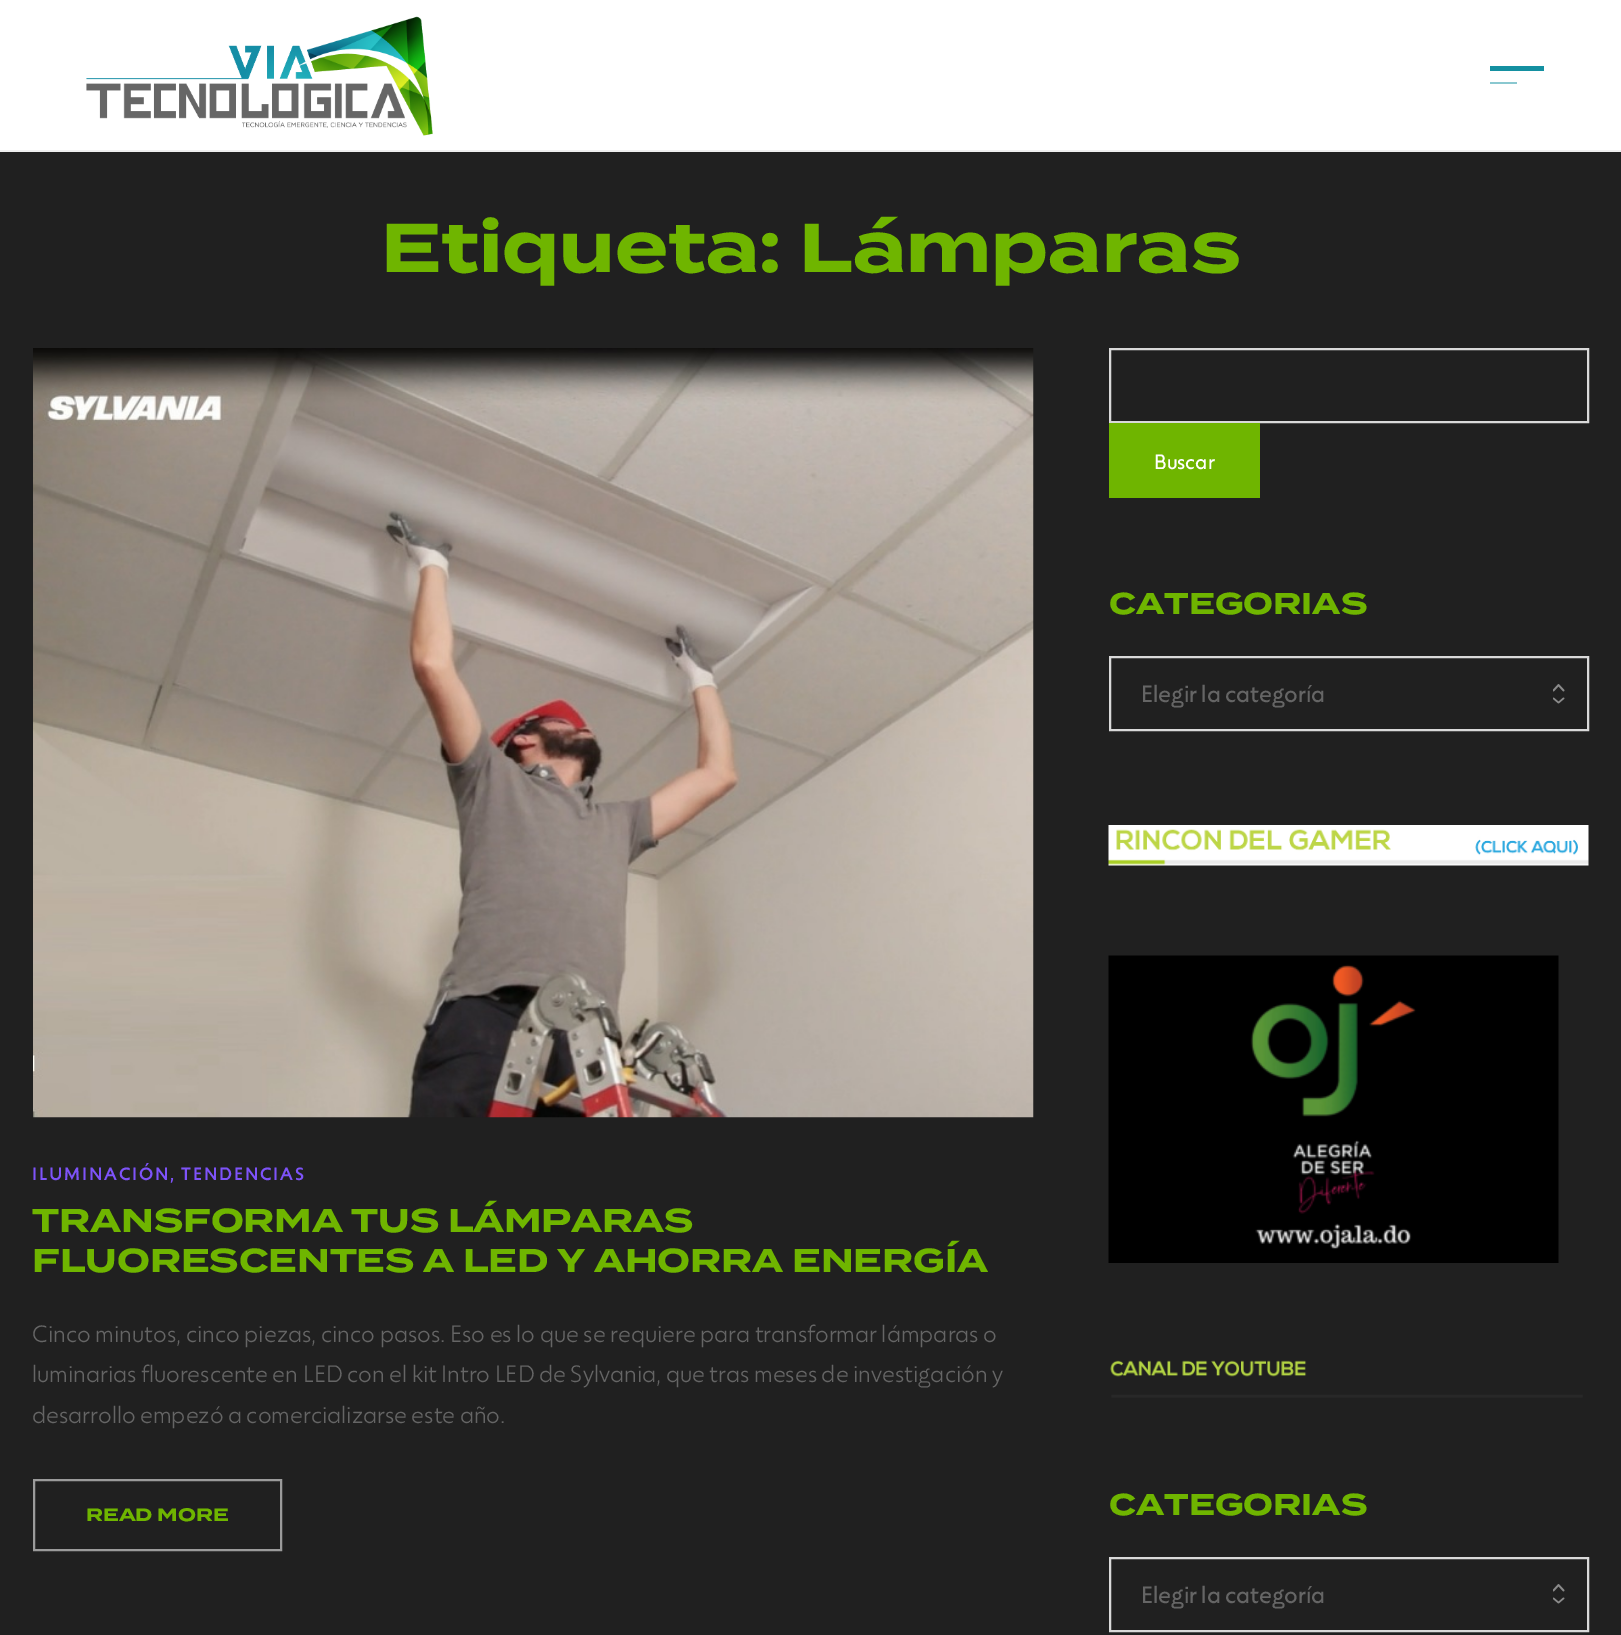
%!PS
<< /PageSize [1621 1635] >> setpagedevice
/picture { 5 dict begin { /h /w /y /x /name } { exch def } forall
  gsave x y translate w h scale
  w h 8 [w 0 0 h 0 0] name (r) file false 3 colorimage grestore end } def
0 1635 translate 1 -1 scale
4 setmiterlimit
0.125 setgray
0 0 1621 1635 rectfill
1 setgray
0 0 1621 150 rectfill
(img1.rgb) 86 16 347 120 picture
0.078 0.565 0.631 setrgbcolor
1490 66 54 5 rectfill
0.541 0.784 0.816 setrgbcolor
1490 82 27 2 rectfill
0.933 setgray
0 150 1621 2 rectfill
/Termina-Bold [69 0 0 -69 0 0] selectfont
0.435 0.71 0 setrgbcolor
381 272 moveto (Etiqueta: Lámparas) show
(img2.rgb) 33 348 1001 770 picture
/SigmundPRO-Regular [18 0 0 -18 0 0] selectfont
0.494 0.325 0.976 setrgbcolor
32 1180 moveto 1.8 0 (ILUMINACIÓN, TENDENCIAS) ashow
/Termina-Bold [33 0 0 -33 0 0] selectfont
0.435 0.71 0 setrgbcolor
32 1232 moveto (TRANSFORMA TUS LÁMPARAS) show
32 1272 moveto (FLUORESCENTES A LED Y AHORRA ENERGÍA) show
/SigmundPRO-ExtraLight [24 0 0 -24 0 0] selectfont
0.396 setgray
32 1342 moveto (Cinco minutos, cinco piezas, cinco pasos. Eso es lo que se requiere para transformar lámparas o) show
32 1382 moveto (luminarias fluorescente en LED con el kit Intro LED de Sylvania, que tras meses de investigación y) show
32 1423 moveto (desarrollo empezó a comercializarse este año.) show
0.608 setgray
2 setlinewidth
34 1480 247 70 rectstroke
/Termina-Bold [18 0 0 -18 0 0] selectfont
0.435 0.71 0 setrgbcolor
86 1521 moveto (READ MORE) show
0.851 setgray
1110 349 478 73 rectstroke
0.435 0.71 0 setrgbcolor
1109 423 151 75 rectfill
/SigmundPRO-Light [21 0 0 -21 0 0] selectfont
1 setgray
1154 469 moveto (Buscar) show
/Termina-Bold [30 0 0 -30 0 0] selectfont
0.435 0.71 0 setrgbcolor
1109 614 moveto (CATEGORIAS) show
(img3.rgb) 1553 684 12 20 picture
0.851 setgray
1110 657 478 73 rectstroke
/SigmundPRO-Light [24 0 0 -24 0 0] selectfont
0.396 setgray
1141 702 moveto (Elegir la categoría) show
(img4.rgb) 1108 825 481 41 picture
(img5.rgb) 1108 955 451 308 picture
(img6.rgb) 1110 1360 473 38 picture
/Termina-Bold [30 0 0 -30 0 0] selectfont
0.435 0.71 0 setrgbcolor
1109 1515 moveto (CATEGORIAS) show
(img3.rgb) 1553 1584 12 20 picture
0.851 setgray
1110 1558 478 73 rectstroke
/SigmundPRO-Light [24 0 0 -24 0 0] selectfont
0.396 setgray
1141 1603 moveto (Elegir la categoría) show
showpage
